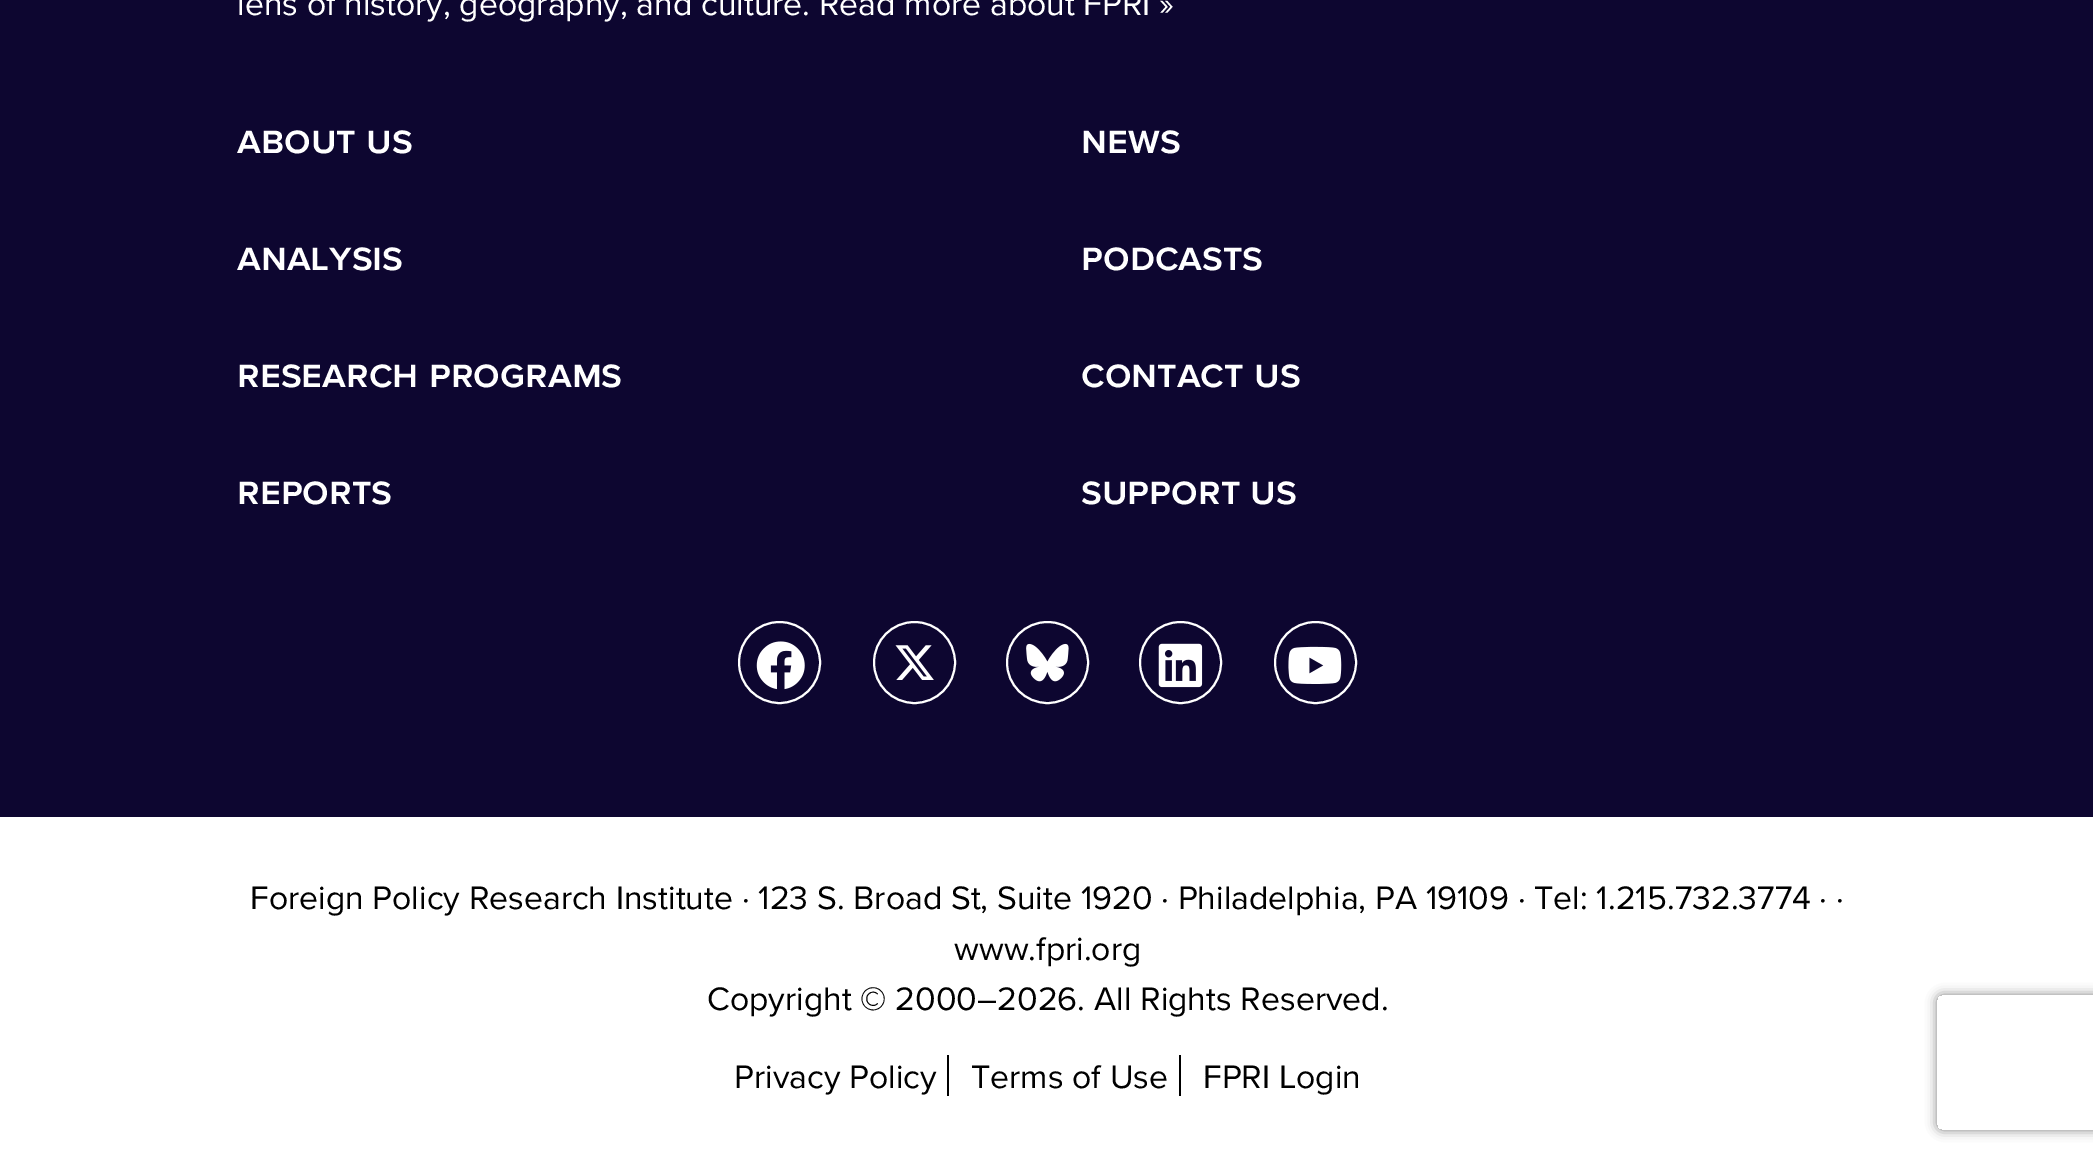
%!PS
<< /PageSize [2093 1159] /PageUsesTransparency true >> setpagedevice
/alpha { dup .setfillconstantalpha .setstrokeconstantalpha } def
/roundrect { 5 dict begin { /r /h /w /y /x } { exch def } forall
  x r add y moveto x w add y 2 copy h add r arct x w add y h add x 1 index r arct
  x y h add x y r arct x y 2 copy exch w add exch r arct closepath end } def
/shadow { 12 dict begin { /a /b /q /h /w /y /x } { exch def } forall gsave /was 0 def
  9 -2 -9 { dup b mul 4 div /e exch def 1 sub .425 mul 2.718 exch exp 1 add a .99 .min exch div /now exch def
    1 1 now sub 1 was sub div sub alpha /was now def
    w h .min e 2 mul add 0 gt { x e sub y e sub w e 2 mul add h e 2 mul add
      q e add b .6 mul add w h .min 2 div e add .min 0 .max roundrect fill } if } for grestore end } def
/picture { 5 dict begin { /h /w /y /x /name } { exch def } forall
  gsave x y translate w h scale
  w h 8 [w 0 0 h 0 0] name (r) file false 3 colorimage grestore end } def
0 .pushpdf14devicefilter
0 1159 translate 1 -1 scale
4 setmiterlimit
1 setgray
0 0 2093 1159 rectfill
0.051 0.024 0.188 setrgbcolor
0 0 2093 817 rectfill
/ProximaNova-Regular [33.75 0 0 -33.75 0 0] selectfont
1 setgray
237 15 moveto (lens of history, geography, and culture. Read more about FPRI ») show
/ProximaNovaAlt-SemiBold [40.5 0 0 -40.5 0 0] selectfont
237 153 moveto (About Us) show
237 270 moveto (Analysis) show
1081 153 moveto (News) show
1081 270 moveto (Podcasts) show
237 387 moveto (Research Programs) show
237 504 moveto (Reports) show
1081 387 moveto (Contact Us) show
1081 504 moveto (Support Us) show
2 setlinewidth
newpath 779.5 662.5 40.5 0 360 arc closepath stroke
(img1.rgb) 756 641 49 49 picture
newpath 914.5 662.5 40.5 0 360 arc closepath stroke
(img2.rgb) 895 645 39 35 picture
newpath 1047.5 662.5 40.5 0 360 arc closepath stroke
(img3.rgb) 1026 643 43 39 picture
newpath 1180.5 662.5 40.5 0 360 arc closepath stroke
(img4.rgb) 1158 643 45 45 picture
newpath 1315.5 662.5 40.5 0 360 arc closepath stroke
(img5.rgb) 1288 646 54 38 picture
/ProximaNova-Regular [33.75 0 0 -33.75 0 0] selectfont
0 setgray
250 909 moveto (Foreign Policy Research Institute · 123 S. Broad St, Suite 1920 · Philadelphia, PA 19109 · Tel: 1.215.732.3774 · ·) show
954 960 moveto (www.fpri.org) show
707 1010 moveto (Copyright © 2000–2026. All Rights Reserved.) show
734 1088 moveto (Privacy Policy) show
947 1055 2 41 rectfill
971 1088 moveto (Terms of Use) show
1179 1055 2 41 rectfill
1203 1088 moveto (FPRI Login) show
gsave
newpath 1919 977 moveto 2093 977 lineto 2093 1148 lineto 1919 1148 lineto closepath 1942 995 moveto 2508 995 lineto 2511 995 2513 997 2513 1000 curveto 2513 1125 lineto 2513 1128 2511 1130 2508 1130 curveto 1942 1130 lineto 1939 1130 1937 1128 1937 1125 curveto 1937 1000 lineto 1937 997 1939 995 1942 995 curveto closepath eoclip newpath
0.502 setgray
1937 995 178 135 5 5.5 1 shadow
grestore
.poppdf14devicefilter showpage
